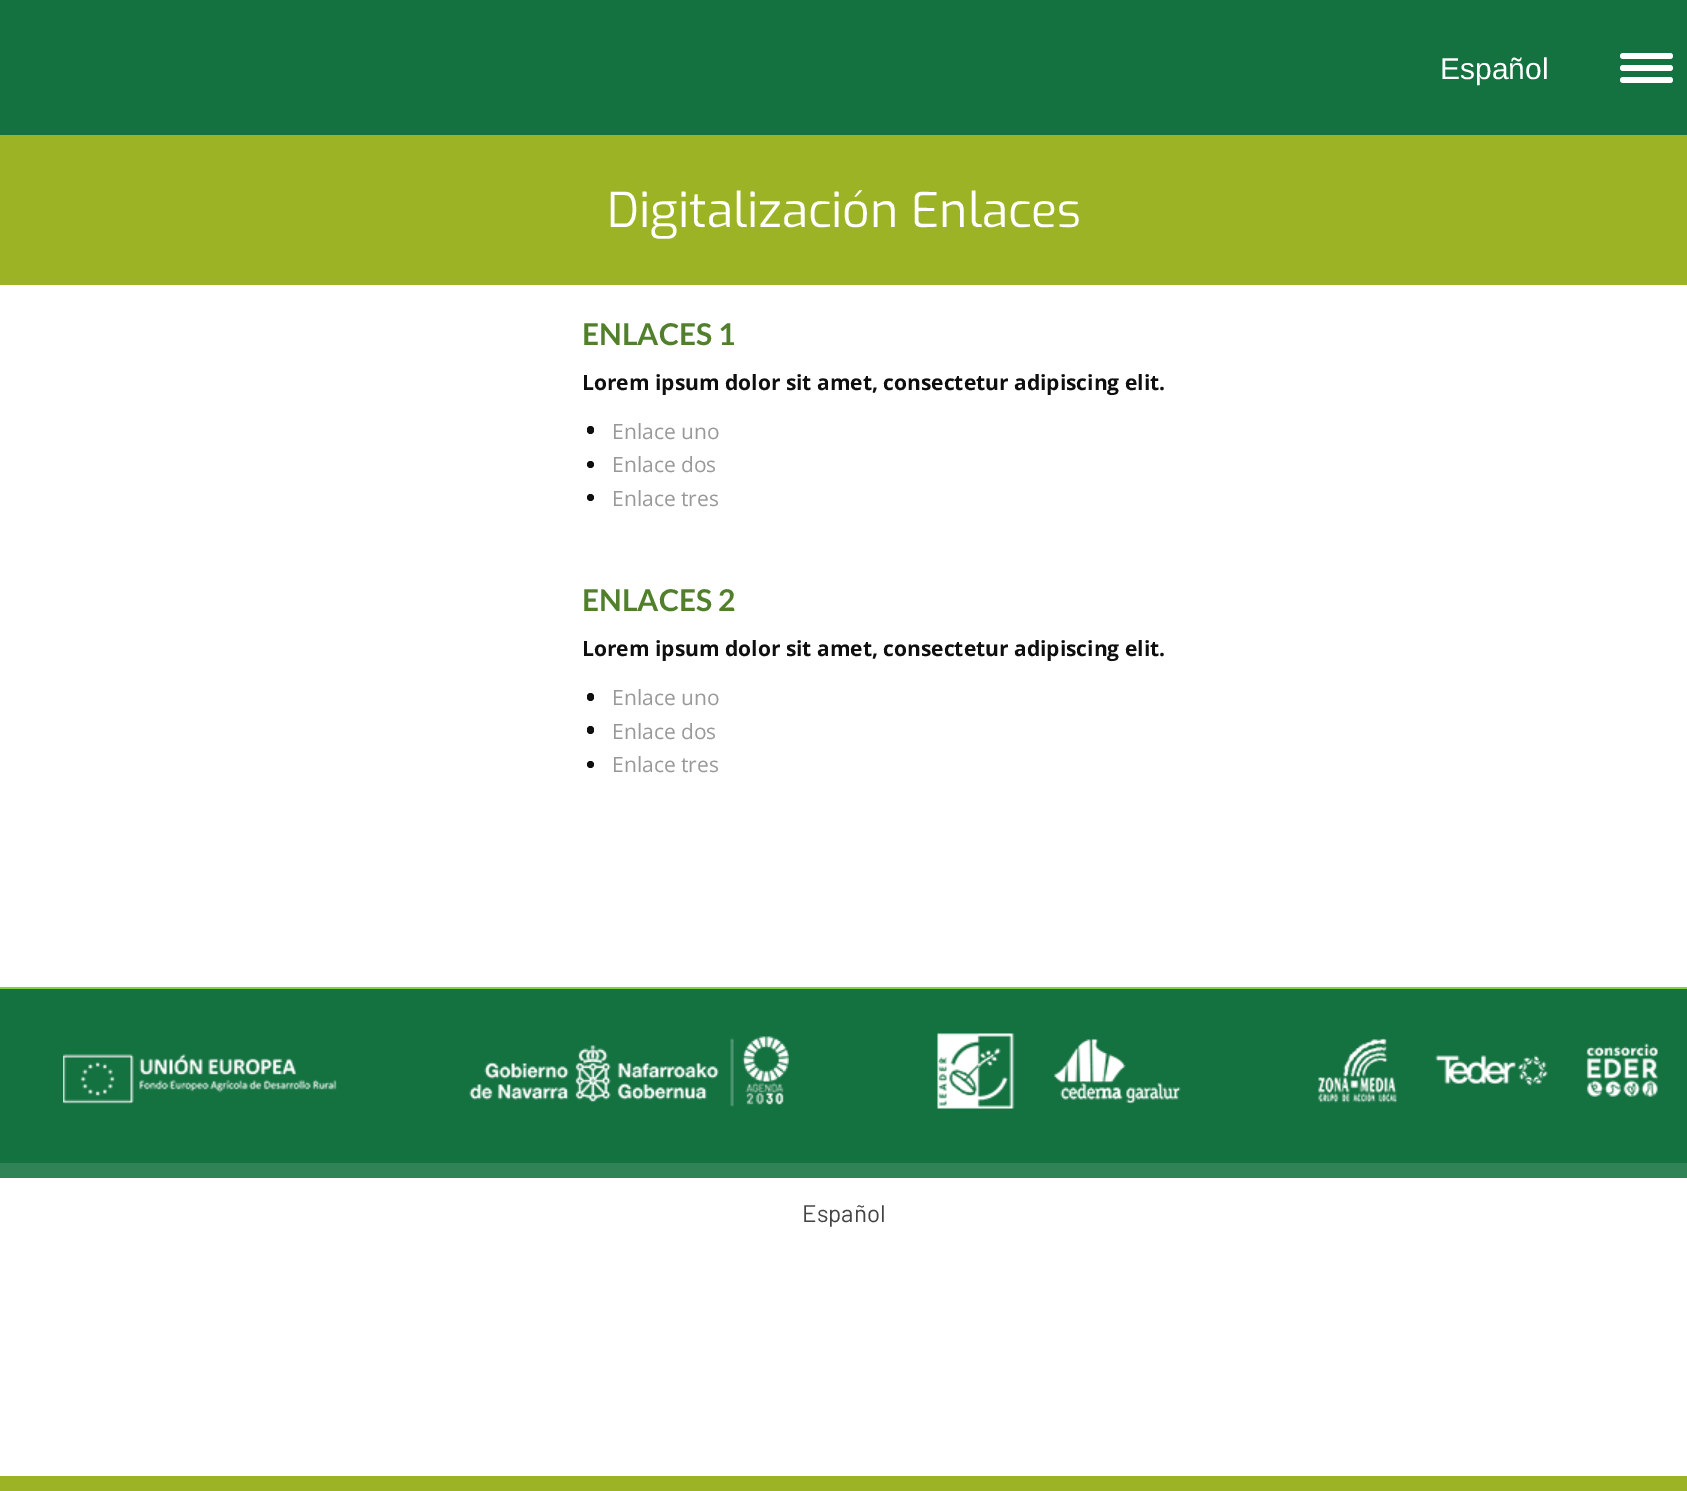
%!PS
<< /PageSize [1687 1491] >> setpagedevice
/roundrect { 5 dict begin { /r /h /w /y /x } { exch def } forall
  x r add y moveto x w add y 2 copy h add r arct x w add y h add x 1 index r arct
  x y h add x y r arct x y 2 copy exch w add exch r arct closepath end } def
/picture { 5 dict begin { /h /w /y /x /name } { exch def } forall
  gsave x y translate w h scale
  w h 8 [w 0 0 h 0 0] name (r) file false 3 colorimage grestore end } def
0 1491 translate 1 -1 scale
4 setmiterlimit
1 setgray
0 0 1687 1491 rectfill
0.078 0.443 0.251 setrgbcolor
0 0 1687 135 rectfill
/LiberationSans-Regular [30 0 0 -30 0 0] selectfont
1 setgray
1440 79 moveto (Español) show
1620 53 53 6 3 roundrect fill
1620 65 53 6 3 roundrect fill
1620 77 53 6 3 roundrect fill
0.612 0.702 0.145 setrgbcolor
0 135 1687 150 rectfill
/Exo-Regular [48 0 0 -48 0 0] selectfont
1 setgray
607 227 moveto (Digitalización Enlaces) show
/Lato-Bold [30 0 0 -30 0 0] selectfont
0.318 0.498 0.173 setrgbcolor
582 345 moveto (ENLACES 1) show
/OpenSans-Bold [21 0 0 -21 0 0] selectfont
0.059 setgray
582 390 moveto (Lorem ipsum dolor sit amet, consectetur adipiscing elit.) show
587 426 7 8 3.5 roundrect fill
/OpenSans-Regular [21 0 0 -21 0 0] selectfont
0.6 setgray
612 439 moveto (Enlace uno) show
0.059 setgray
newpath 590.5 464.5 3.5 0 360 arc closepath fill
0.6 setgray
612 472 moveto (Enlace dos) show
0.059 setgray
newpath 590.5 497.5 3.5 0 360 arc closepath fill
0.6 setgray
612 506 moveto (Enlace tres) show
/Lato-Bold [30 0 0 -30 0 0] selectfont
0.318 0.498 0.173 setrgbcolor
582 611 moveto (ENLACES 2) show
/OpenSans-Bold [21 0 0 -21 0 0] selectfont
0.059 setgray
582 656 moveto (Lorem ipsum dolor sit amet, consectetur adipiscing elit.) show
587 693 7 8 3.5 roundrect fill
/OpenSans-Regular [21 0 0 -21 0 0] selectfont
0.6 setgray
612 705 moveto (Enlace uno) show
0.059 setgray
587 726 7 8 3.5 roundrect fill
0.6 setgray
612 739 moveto (Enlace dos) show
0.059 setgray
newpath 590.5 764.5 3.5 0 360 arc closepath fill
0.6 setgray
612 772 moveto (Enlace tres) show
0.078 0.443 0.251 setrgbcolor
0 989 1687 174 rectfill
0.49 0.827 0.259 setrgbcolor
0 987 1687 2 rectfill
(img1.rgb) 63 1054 274 50 picture
(img2.rgb) 469 1036 320 71 picture
(img3.rgb) 937 1033 244 76 picture
(img4.rgb) 1318 1038 340 65 picture
0.188 0.51 0.341 setrgbcolor
0 1163 1687 15 rectfill
/Barlow-Regular [24 0 0 -24 0 0] selectfont
0.267 setgray
802 1222 moveto (Español) show
0.612 0.702 0.145 setrgbcolor
0 1476 1687 15 rectfill
showpage
